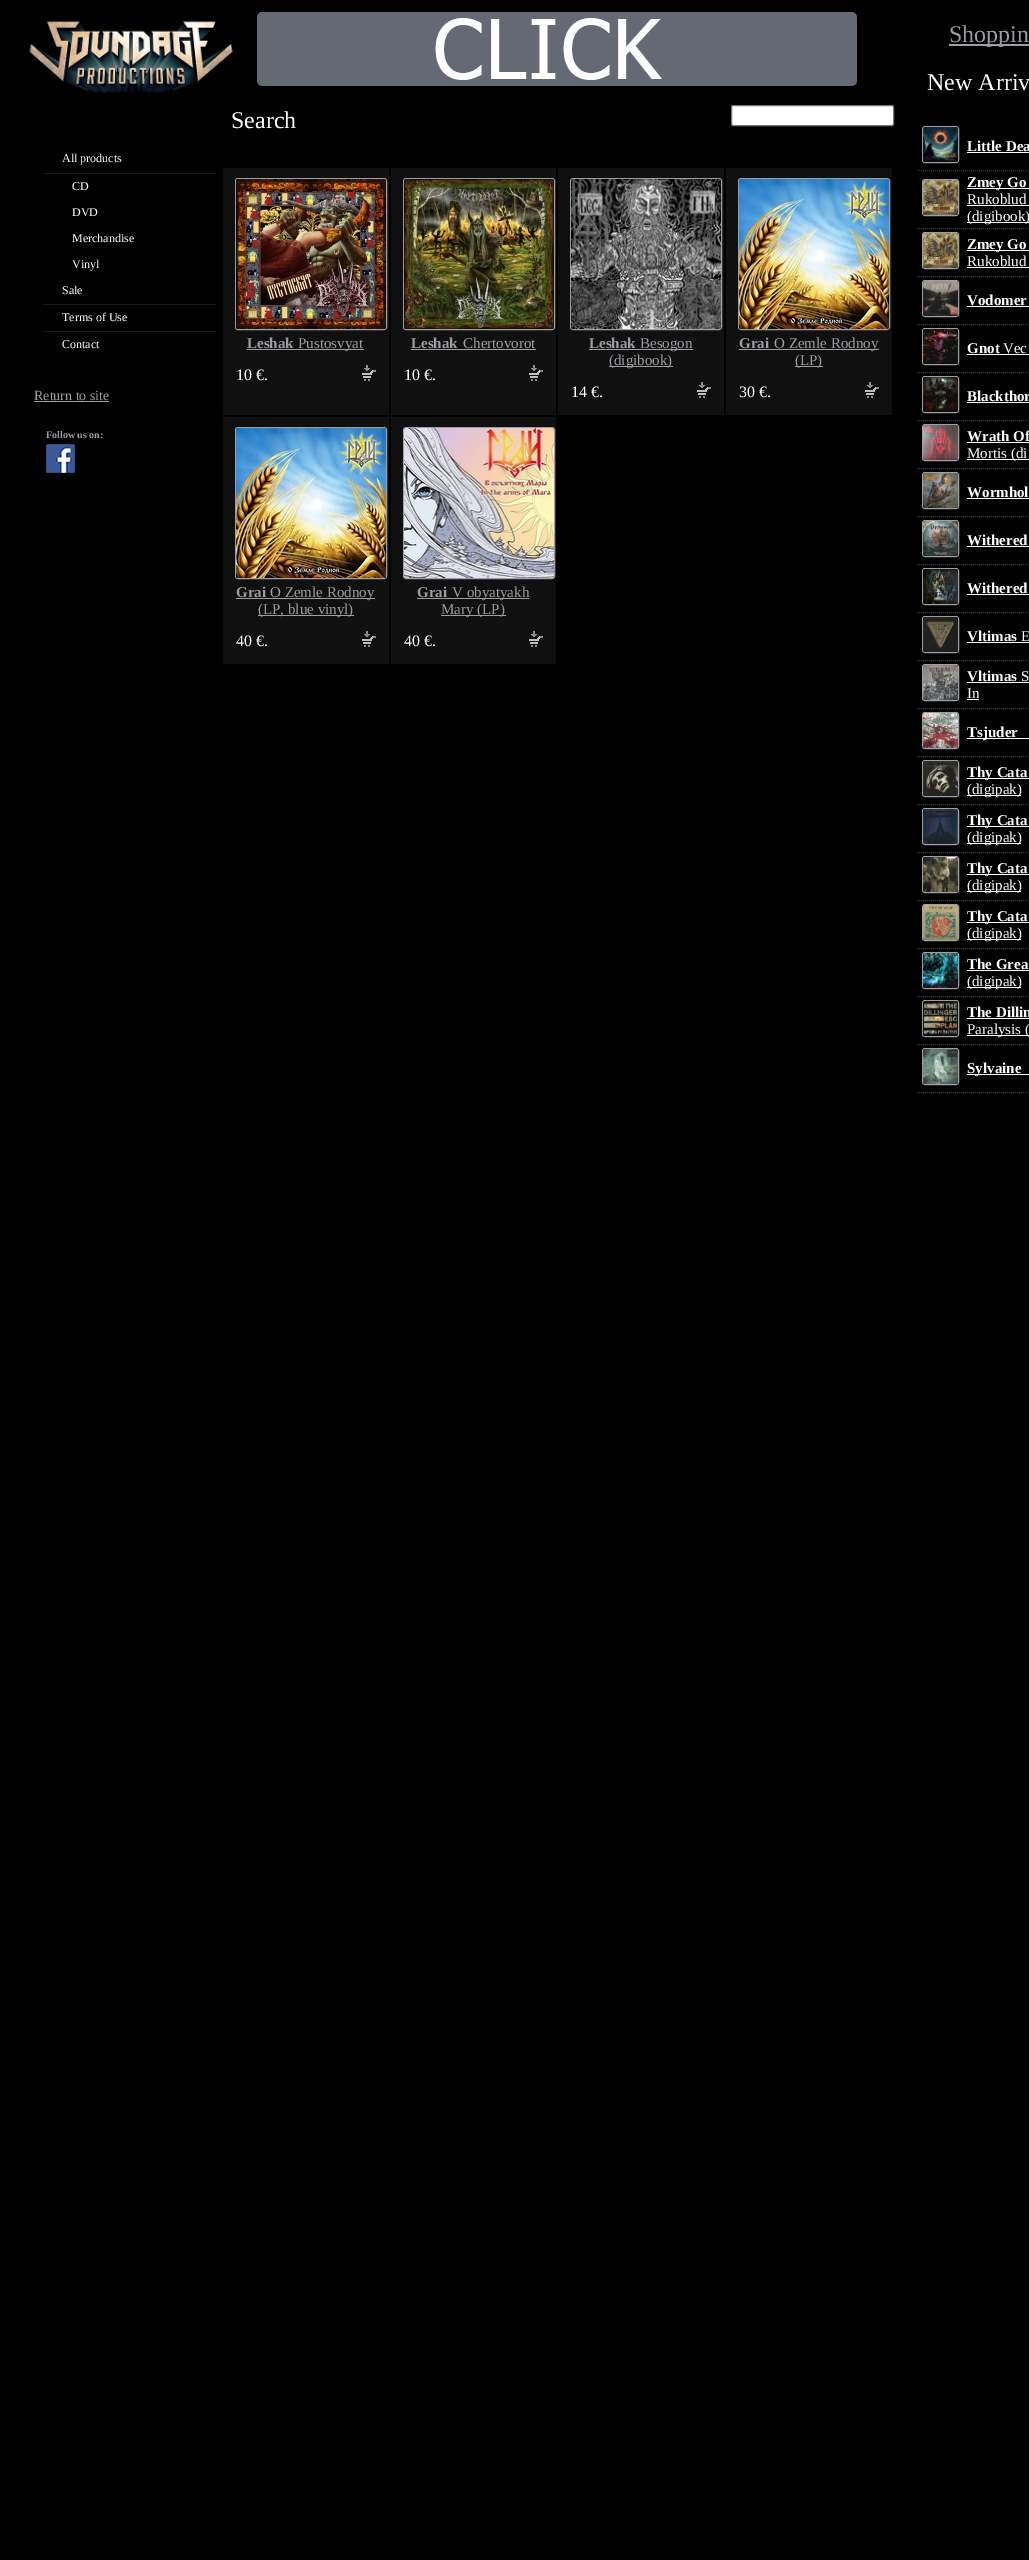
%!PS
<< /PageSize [1029 2560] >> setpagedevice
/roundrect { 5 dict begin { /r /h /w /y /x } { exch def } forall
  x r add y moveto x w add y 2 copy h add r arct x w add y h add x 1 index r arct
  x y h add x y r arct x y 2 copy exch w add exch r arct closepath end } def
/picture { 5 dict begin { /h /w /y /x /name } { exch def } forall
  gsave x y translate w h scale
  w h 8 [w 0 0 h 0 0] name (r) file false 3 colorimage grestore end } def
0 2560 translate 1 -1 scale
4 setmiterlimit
0 setgray
0 0 1029 2560 rectfill
(img1.rgb) 29 21 204 73 picture
0.094 setgray
43 173 173 1 rectfill
/LiberationSerif-Regular [12 0 0 -12 0 0] selectfont
1 setgray
62 162 moveto (All products) show
72 190 moveto (CD) show
72 216 moveto (DVD) show
72 242 moveto (Merchandise) show
72 268 moveto (Vinyl) show
0.094 setgray
43 304 173 1 rectfill
1 setgray
62 294 moveto (Sale) show
0.094 setgray
43 331 173 1 rectfill
1 setgray
62 321 moveto (Terms of Use) show
62 348 moveto (Contact) show
/LiberationSerif-Regular [14 0 0 -14 0 0] selectfont
0.616 0.616 0.639 setrgbcolor
34 400 moveto (Return to site) show
34 401 75 1 rectfill
/LiberationSerif-Bold [10 0 0 -10 0 0] selectfont
46 438 moveto (Follow us on:) show
(img2.rgb) 46 444 29 29 picture
(img3.rgb) 257 12 600 74 picture
/LiberationSerif-Regular [24 0 0 -24 0 0] selectfont
1 setgray
231 128 moveto (Search) show
731.5 105.5 162 20 1.5 roundrect gsave fill grestore
0.463 setgray
stroke
0.063 0.063 0.067 setrgbcolor
223 168 166 247 rectfill
0.616 0.616 0.639 setrgbcolor
235.5 178.5 151 151 2.5 roundrect stroke
(img4.rgb) 236 179 150 150 picture
/LiberationSerif-Bold [15 0 0 -15 0 0] selectfont
247 348 moveto (Leshak) show
247 349 117 1 rectfill
/LiberationSerif-Regular [15 0 0 -15 0 0] selectfont
298 348 moveto (Pustosvyat) show
/LiberationSerif-Regular [16 0 0 -16 0 0] selectfont
1 setgray
236 380 moveto (10 €.) show
(img5.rgb) 362 365 14 16 picture
0.063 0.063 0.067 setrgbcolor
391 168 165 247 rectfill
0.616 0.616 0.639 setrgbcolor
403.5 178.5 151 151 2.5 roundrect stroke
(img6.rgb) 404 179 150 150 picture
/LiberationSerif-Bold [15 0 0 -15 0 0] selectfont
411 348 moveto (Leshak) show
411 349 125 1 rectfill
/LiberationSerif-Regular [15 0 0 -15 0 0] selectfont
463 348 moveto (Chertovorot) show
/LiberationSerif-Regular [16 0 0 -16 0 0] selectfont
1 setgray
404 380 moveto (10 €.) show
(img5.rgb) 529 365 14 16 picture
0.063 0.063 0.067 setrgbcolor
558 168 166 247 rectfill
0.616 0.616 0.639 setrgbcolor
570.5 178.5 151 151 2.5 roundrect stroke
(img7.rgb) 571 179 150 150 picture
/LiberationSerif-Bold [15 0 0 -15 0 0] selectfont
589 348 moveto (Leshak) show
589 349 104 1 rectfill
/LiberationSerif-Regular [15 0 0 -15 0 0] selectfont
640 348 moveto (Besogon) show
609 366 64 1 rectfill
609 365 moveto (\(digibook\)) show
/LiberationSerif-Regular [16 0 0 -16 0 0] selectfont
1 setgray
571 397 moveto (14 €.) show
(img5.rgb) 697 382 14 16 picture
0.063 0.063 0.067 setrgbcolor
726 168 166 247 rectfill
0.616 0.616 0.639 setrgbcolor
738.5 178.5 151 151 2.5 roundrect stroke
(img8.rgb) 739 179 150 150 picture
/LiberationSerif-Bold [15 0 0 -15 0 0] selectfont
739 348 moveto (Grai) show
739 349 140 1 rectfill
/LiberationSerif-Regular [15 0 0 -15 0 0] selectfont
774 348 moveto (O Zemle Rodnoy) show
795 366 28 1 rectfill
795 365 moveto (\(LP\)) show
/LiberationSerif-Regular [16 0 0 -16 0 0] selectfont
1 setgray
739 397 moveto (30 €.) show
(img5.rgb) 865 382 14 16 picture
0.063 0.063 0.067 setrgbcolor
223 417 166 247 rectfill
0.616 0.616 0.639 setrgbcolor
235.5 427.5 151 151 2.5 roundrect stroke
(img8.rgb) 236 428 150 150 picture
/LiberationSerif-Bold [15 0 0 -15 0 0] selectfont
236 597 moveto (Grai) show
236 598 139 1 rectfill
/LiberationSerif-Regular [15 0 0 -15 0 0] selectfont
270 597 moveto (O Zemle Rodnoy) show
258 615 96 1 rectfill
258 614 moveto (\(LP, blue vinyl\)) show
/LiberationSerif-Regular [16 0 0 -16 0 0] selectfont
1 setgray
236 646 moveto (40 €.) show
(img5.rgb) 362 631 14 16 picture
0.063 0.063 0.067 setrgbcolor
391 417 165 247 rectfill
0.616 0.616 0.639 setrgbcolor
403.5 427.5 151 151 2.5 roundrect stroke
(img9.rgb) 404 428 150 150 picture
/LiberationSerif-Bold [15 0 0 -15 0 0] selectfont
417 597 moveto (Grai) show
417 598 112 1 rectfill
/LiberationSerif-Regular [15 0 0 -15 0 0] selectfont
452 597 moveto (V obyatyakh) show
441 615 65 1 rectfill
441 614 moveto (Mary \(LP\)) show
/LiberationSerif-Regular [16 0 0 -16 0 0] selectfont
1 setgray
404 646 moveto (40 €.) show
(img5.rgb) 529 631 14 16 picture
0.616 0.616 0.639 setrgbcolor
949 44 80 2 rectfill
/LiberationSerif-Regular [24 0 0 -24 0 0] selectfont
949 42 moveto (Shoppin) show
1 setgray
927 90 moveto (New Arriv) show
0.212 0.212 0.22 setrgbcolor
[1 1] 0 setdash
newpath 917 170.5 moveto 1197 170.5 lineto stroke
0.616 0.616 0.639 setrgbcolor
[] 0 setdash
922.5 126.5 36 36 2.5 roundrect stroke
(img10.rgb) 923 127 35 35 picture
/LiberationSerif-Bold [15 0 0 -15 0 0] selectfont
1 setgray
967 151 moveto (Little Dea) show
967 152 62 1 rectfill
0.212 0.212 0.22 setrgbcolor
[1 1] 0 setdash
newpath 917 228.5 moveto 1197 228.5 lineto stroke
0.616 0.616 0.639 setrgbcolor
[] 0 setdash
922.5 179.5 36 36 2.5 roundrect stroke
(img11.rgb) 923 180 35 35 picture
1 setgray
967 188 62 1 rectfill
967 187 moveto (Zmey Go) show
/LiberationSerif-Regular [15 0 0 -15 0 0] selectfont
967 204 moveto (Rukoblud) show
967 205 62 1 rectfill
967 222 62 1 rectfill
967 221 moveto (\(digibook\)) show
0.212 0.212 0.22 setrgbcolor
[1 1] 0 setdash
newpath 917 276.5 moveto 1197 276.5 lineto stroke
0.616 0.616 0.639 setrgbcolor
[] 0 setdash
922.5 232.5 36 36 2.5 roundrect stroke
(img12.rgb) 923 233 35 35 picture
1 setgray
967 250 62 1 rectfill
/LiberationSerif-Bold [15 0 0 -15 0 0] selectfont
967 249 moveto (Zmey Go) show
/LiberationSerif-Regular [15 0 0 -15 0 0] selectfont
967 266 moveto (Rukoblud) show
967 267 62 1 rectfill
0.212 0.212 0.22 setrgbcolor
[1 1] 0 setdash
newpath 917 324.5 moveto 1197 324.5 lineto stroke
0.616 0.616 0.639 setrgbcolor
[] 0 setdash
922.5 280.5 36 36 2.5 roundrect stroke
(img13.rgb) 923 281 35 35 picture
/LiberationSerif-Bold [15 0 0 -15 0 0] selectfont
1 setgray
967 305 moveto (Vodomer) show
967 306 62 1 rectfill
0.212 0.212 0.22 setrgbcolor
[1 1] 0 setdash
newpath 917 372.5 moveto 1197 372.5 lineto stroke
0.616 0.616 0.639 setrgbcolor
[] 0 setdash
922.5 328.5 36 36 2.5 roundrect stroke
(img14.rgb) 923 329 35 35 picture
1 setgray
967 353 moveto (Gnot) show
967 354 62 1 rectfill
/LiberationSerif-Regular [15 0 0 -15 0 0] selectfont
1003 353 moveto (Vec) show
0.212 0.212 0.22 setrgbcolor
[1 1] 0 setdash
newpath 917 420.5 moveto 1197 420.5 lineto stroke
0.616 0.616 0.639 setrgbcolor
[] 0 setdash
922.5 376.5 36 36 2.5 roundrect stroke
(img15.rgb) 923 377 35 35 picture
/LiberationSerif-Bold [15 0 0 -15 0 0] selectfont
1 setgray
967 401 moveto (Blackthor) show
967 402 62 1 rectfill
0.212 0.212 0.22 setrgbcolor
[1 1] 0 setdash
newpath 917 468.5 moveto 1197 468.5 lineto stroke
0.616 0.616 0.639 setrgbcolor
[] 0 setdash
922.5 424.5 36 36 2.5 roundrect stroke
(img16.rgb) 923 425 35 35 picture
1 setgray
967 441 moveto (Wrath Of) show
967 442 62 1 rectfill
967 459 62 1 rectfill
/LiberationSerif-Regular [15 0 0 -15 0 0] selectfont
967 458 moveto (Mortis \(di) show
0.212 0.212 0.22 setrgbcolor
[1 1] 0 setdash
newpath 917 516.5 moveto 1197 516.5 lineto stroke
0.616 0.616 0.639 setrgbcolor
[] 0 setdash
922.5 472.5 36 36 2.5 roundrect stroke
(img17.rgb) 923 473 35 35 picture
/LiberationSerif-Bold [15 0 0 -15 0 0] selectfont
1 setgray
967 497 moveto (Wormhol) show
967 498 62 1 rectfill
0.212 0.212 0.22 setrgbcolor
[1 1] 0 setdash
newpath 917 564.5 moveto 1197 564.5 lineto stroke
0.616 0.616 0.639 setrgbcolor
[] 0 setdash
922.5 520.5 36 36 2.5 roundrect stroke
(img18.rgb) 923 521 35 35 picture
1 setgray
967 545 moveto (Withered) show
967 546 62 1 rectfill
0.212 0.212 0.22 setrgbcolor
[1 1] 0 setdash
newpath 917 612.5 moveto 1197 612.5 lineto stroke
0.616 0.616 0.639 setrgbcolor
[] 0 setdash
922.5 568.5 36 36 2.5 roundrect stroke
(img19.rgb) 923 569 35 35 picture
1 setgray
967 593 moveto (Withered) show
967 594 62 1 rectfill
0.212 0.212 0.22 setrgbcolor
[1 1] 0 setdash
newpath 917 660.5 moveto 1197 660.5 lineto stroke
0.616 0.616 0.639 setrgbcolor
[] 0 setdash
922.5 616.5 36 36 2.5 roundrect stroke
(img20.rgb) 923 617 35 35 picture
1 setgray
967 641 moveto (Vltimas) show
967 642 62 1 rectfill
/LiberationSerif-Regular [15 0 0 -15 0 0] selectfont
1021 641 moveto (E) show
0.212 0.212 0.22 setrgbcolor
[1 1] 0 setdash
newpath 917 708.5 moveto 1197 708.5 lineto stroke
0.616 0.616 0.639 setrgbcolor
[] 0 setdash
922.5 664.5 36 36 2.5 roundrect stroke
(img21.rgb) 923 665 35 35 picture
/LiberationSerif-Bold [15 0 0 -15 0 0] selectfont
1 setgray
967 681 moveto (Vltimas) show
/LiberationSerif-Regular [15 0 0 -15 0 0] selectfont
1021 681 moveto (S) show
967 682 62 1 rectfill
967 698 moveto (In) show
967 699 12 1 rectfill
0.212 0.212 0.22 setrgbcolor
[1 1] 0 setdash
newpath 917 756.5 moveto 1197 756.5 lineto stroke
0.616 0.616 0.639 setrgbcolor
[] 0 setdash
922.5 712.5 36 36 2.5 roundrect stroke
(img22.rgb) 923 713 35 35 picture
1 setgray
967 738 62 1 rectfill
/LiberationSerif-Bold [15 0 0 -15 0 0] selectfont
967 737 moveto (Tsjuder) show
0.212 0.212 0.22 setrgbcolor
[1 1] 0 setdash
newpath 917 804.5 moveto 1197 804.5 lineto stroke
0.616 0.616 0.639 setrgbcolor
[] 0 setdash
922.5 760.5 36 36 2.5 roundrect stroke
(img23.rgb) 923 761 35 35 picture
1 setgray
967 778 62 1 rectfill
967 777 moveto (Thy Cata) show
967 795 54 1 rectfill
/LiberationSerif-Regular [15 0 0 -15 0 0] selectfont
967 794 moveto (\(digipak\)) show
0.212 0.212 0.22 setrgbcolor
[1 1] 0 setdash
newpath 917 852.5 moveto 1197 852.5 lineto stroke
0.616 0.616 0.639 setrgbcolor
[] 0 setdash
922.5 808.5 36 36 2.5 roundrect stroke
(img24.rgb) 923 809 35 35 picture
1 setgray
967 826 62 1 rectfill
/LiberationSerif-Bold [15 0 0 -15 0 0] selectfont
967 825 moveto (Thy Cata) show
967 843 54 1 rectfill
/LiberationSerif-Regular [15 0 0 -15 0 0] selectfont
967 842 moveto (\(digipak\)) show
0.212 0.212 0.22 setrgbcolor
[1 1] 0 setdash
newpath 917 900.5 moveto 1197 900.5 lineto stroke
0.616 0.616 0.639 setrgbcolor
[] 0 setdash
922.5 856.5 36 36 2.5 roundrect stroke
(img25.rgb) 923 857 35 35 picture
1 setgray
967 874 62 1 rectfill
/LiberationSerif-Bold [15 0 0 -15 0 0] selectfont
967 873 moveto (Thy Cata) show
967 891 54 1 rectfill
/LiberationSerif-Regular [15 0 0 -15 0 0] selectfont
967 890 moveto (\(digipak\)) show
0.212 0.212 0.22 setrgbcolor
[1 1] 0 setdash
newpath 917 948.5 moveto 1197 948.5 lineto stroke
0.616 0.616 0.639 setrgbcolor
[] 0 setdash
922.5 904.5 36 36 2.5 roundrect stroke
(img26.rgb) 923 905 35 35 picture
1 setgray
967 922 62 1 rectfill
/LiberationSerif-Bold [15 0 0 -15 0 0] selectfont
967 921 moveto (Thy Cata) show
967 939 54 1 rectfill
/LiberationSerif-Regular [15 0 0 -15 0 0] selectfont
967 938 moveto (\(digipak\)) show
0.212 0.212 0.22 setrgbcolor
[1 1] 0 setdash
newpath 917 996.5 moveto 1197 996.5 lineto stroke
0.616 0.616 0.639 setrgbcolor
[] 0 setdash
922.5 952.5 36 36 2.5 roundrect stroke
(img27.rgb) 923 953 35 35 picture
/LiberationSerif-Bold [15 0 0 -15 0 0] selectfont
1 setgray
967 969 moveto (The Grea) show
967 970 62 1 rectfill
967 987 54 1 rectfill
/LiberationSerif-Regular [15 0 0 -15 0 0] selectfont
967 986 moveto (\(digipak\)) show
0.212 0.212 0.22 setrgbcolor
[1 1] 0 setdash
newpath 917 1044.5 moveto 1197 1044.5 lineto stroke
0.616 0.616 0.639 setrgbcolor
[] 0 setdash
922.5 1000.5 36 36 2.5 roundrect stroke
(img28.rgb) 923 1001 35 35 picture
/LiberationSerif-Bold [15 0 0 -15 0 0] selectfont
1 setgray
967 1017 moveto (The Dillin) show
967 1018 62 1 rectfill
967 1035 62 1 rectfill
/LiberationSerif-Regular [15 0 0 -15 0 0] selectfont
967 1034 moveto (Paralysis \() show
0.212 0.212 0.22 setrgbcolor
[1 1] 0 setdash
newpath 917 1092.5 moveto 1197 1092.5 lineto stroke
0.616 0.616 0.639 setrgbcolor
[] 0 setdash
922.5 1048.5 36 36 2.5 roundrect stroke
(img29.rgb) 923 1049 35 35 picture
1 setgray
967 1074 62 1 rectfill
/LiberationSerif-Bold [15 0 0 -15 0 0] selectfont
967 1073 moveto (Sylvaine) show
showpage
